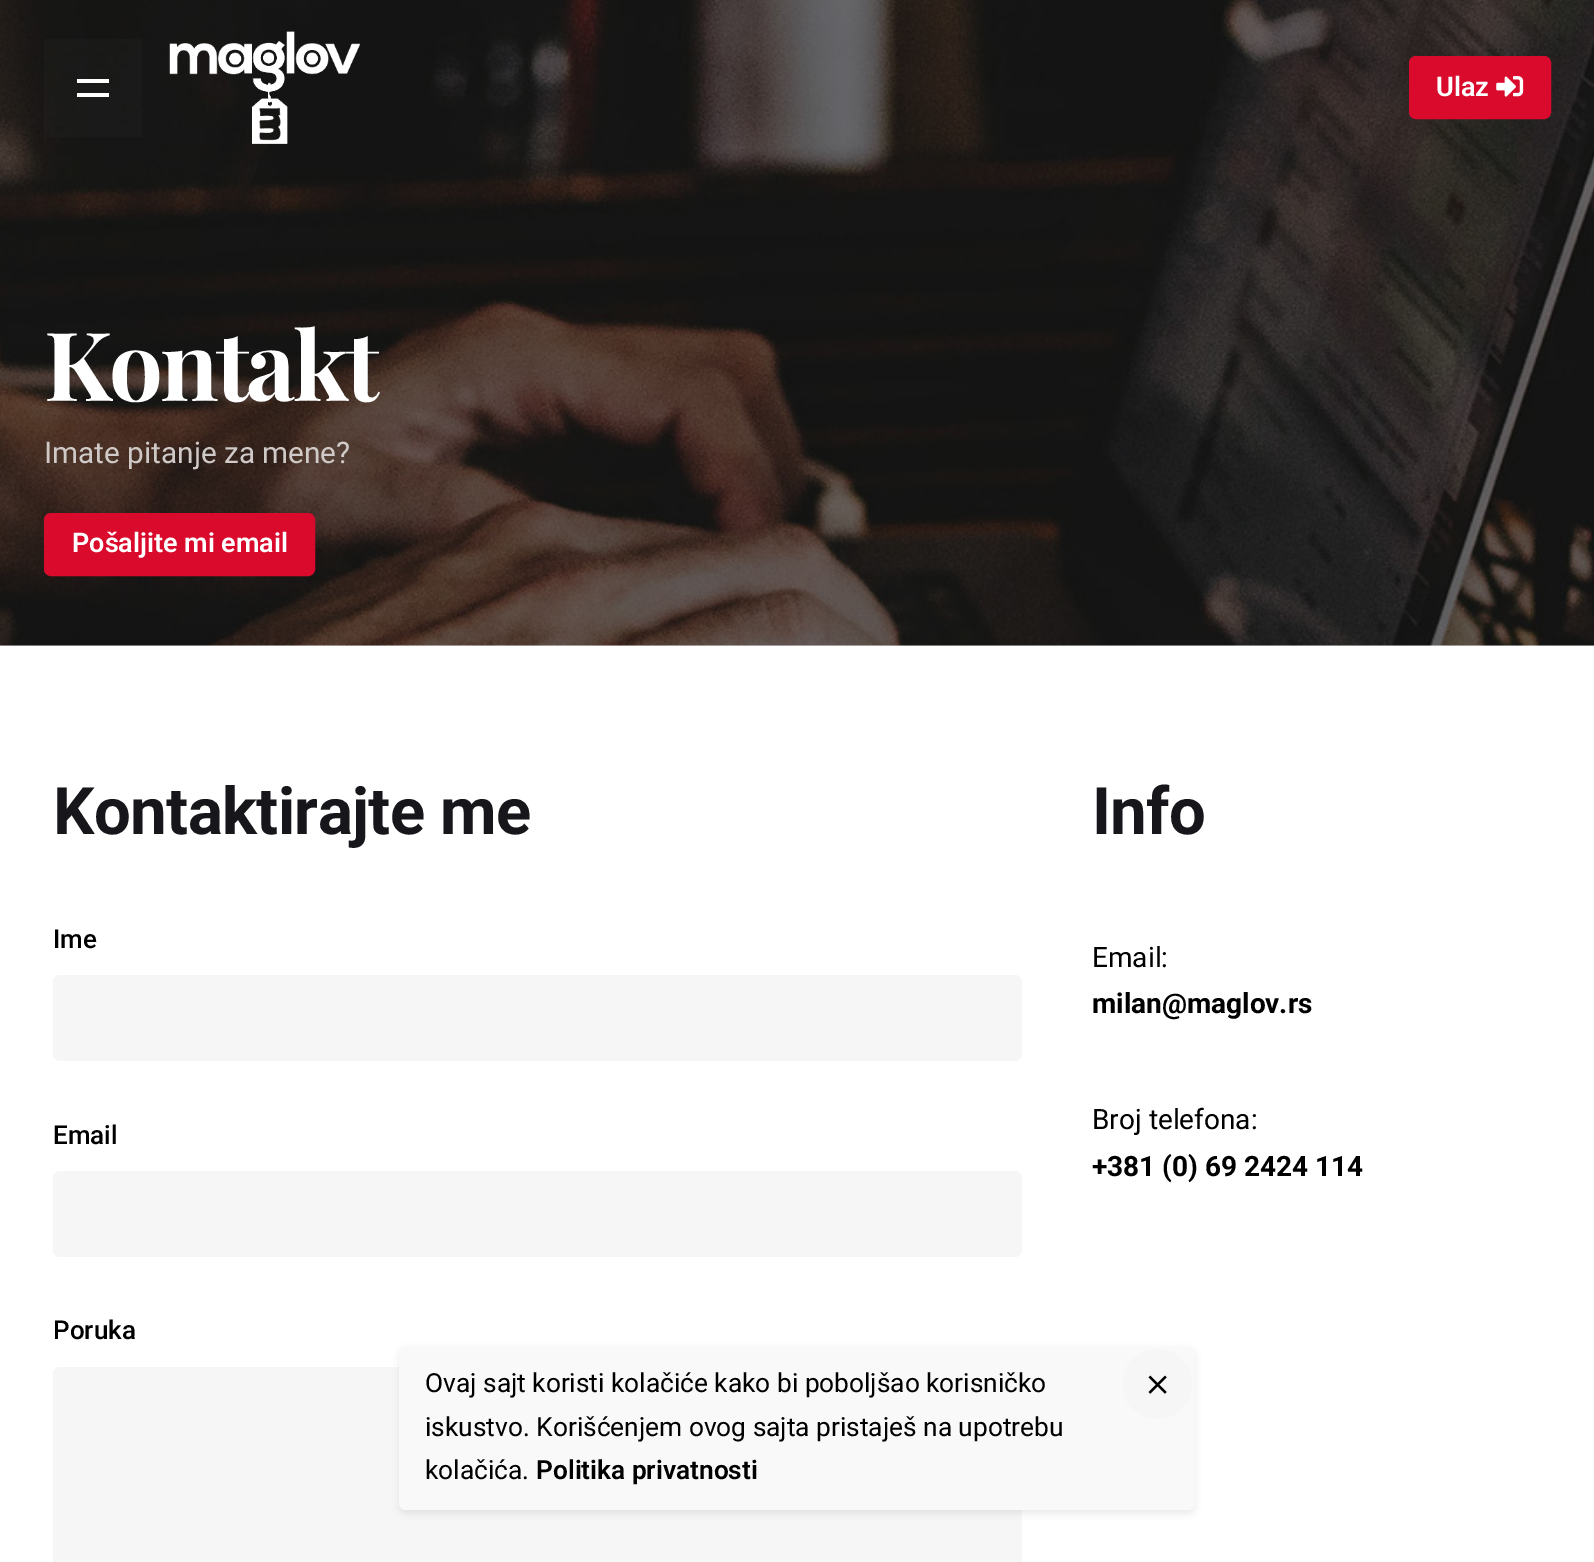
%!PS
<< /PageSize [1594 1562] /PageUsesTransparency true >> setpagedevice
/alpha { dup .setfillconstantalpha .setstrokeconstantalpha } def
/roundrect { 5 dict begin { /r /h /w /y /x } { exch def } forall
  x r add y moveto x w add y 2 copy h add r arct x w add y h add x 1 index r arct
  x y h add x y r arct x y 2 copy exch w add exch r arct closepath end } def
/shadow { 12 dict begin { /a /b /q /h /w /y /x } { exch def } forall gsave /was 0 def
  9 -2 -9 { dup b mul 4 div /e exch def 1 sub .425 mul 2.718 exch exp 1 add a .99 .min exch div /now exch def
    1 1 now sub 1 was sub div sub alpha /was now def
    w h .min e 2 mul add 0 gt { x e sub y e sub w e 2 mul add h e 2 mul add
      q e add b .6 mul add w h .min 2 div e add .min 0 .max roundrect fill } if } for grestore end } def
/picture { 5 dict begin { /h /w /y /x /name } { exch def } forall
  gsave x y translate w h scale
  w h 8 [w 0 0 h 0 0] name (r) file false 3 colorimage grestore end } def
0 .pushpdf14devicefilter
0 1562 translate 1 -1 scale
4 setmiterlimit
1 setgray
0 0 1594 1562 rectfill
(img3.rgb) 0 0 1594 646 picture
0.03 alpha
0.533 setgray
44 39 98 98 rectfill
1 alpha
1 setgray
77 79 32 4 rectfill
77 93 32 4 rectfill
(img1.rgb) 169 31 192 113 picture
0.851 0.039 0.173 setrgbcolor
1410 57 140 61 6 roundrect gsave fill grestore
2 setlinewidth
stroke
/Roboto-SemiBold [27 0 0 -27 0 0] selectfont
1 setgray
1436 96 moveto (Ulaz) show
(img2.rgb) 1496 76 28 21 picture
/PlayfairDisplay-Bold [95.5 0 0 -95.5 0 0] selectfont
44 401 moveto -3 0 (Kontakt) ashow
/Roboto-Regular [29.75 0 0 -29.75 0 0] selectfont
0.812 0.792 0.784 setrgbcolor
44 463 moveto (Imate pitanje za mene?) show
0.851 0.039 0.173 setrgbcolor
45 514 269 61 6 roundrect gsave fill grestore
stroke
/Roboto-SemiBold [27 0 0 -27 0 0] selectfont
1 setgray
72 552 moveto (Pošaljite mi email) show
/Roboto-Bold [65.25 0 0 -65.25 0 0] selectfont
0.09 0.086 0.102 setrgbcolor
53 834 moveto -0.6 0 (Kontaktirajte me) ashow
/Roboto-Medium [26 0 0 -26 0 0] selectfont
0 setgray
53 948 moveto (Ime) show
0.965 setgray
53 975 969 86 7 roundrect fill
0 setgray
53 1144 moveto (Email) show
0.965 setgray
53 1171 969 86 7 roundrect fill
0 setgray
53 1339 moveto (Poruka) show
0.965 setgray
53 1367 969 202 7 roundrect fill
/Roboto-Bold [65.25 0 0 -65.25 0 0] selectfont
0.09 0.086 0.102 setrgbcolor
1092 834 moveto -0.6 0 (Info) ashow
/Roboto-Regular [28 0 0 -28 0 0] selectfont
0 setgray
1092 967 moveto (Email:) show
/Roboto-Bold [28 0 0 -28 0 0] selectfont
1092 1013 moveto (milan@maglov.rs) show
/Roboto-Regular [28 0 0 -28 0 0] selectfont
1092 1129 moveto (Broj telefona:) show
/Roboto-Bold [28 0 0 -28 0 0] selectfont
1092 1176 moveto (+381 \(0\) 69 2424 114) show
399 1349 796 165 7 3.5 0.07 shadow
0.976 setgray
399 1346 796 164 7 roundrect fill
/Roboto-Regular [26.3 0 0 -26.3 0 0] selectfont
0 setgray
425 1392 moveto (Ovaj sajt koristi kolačiće kako bi poboljšao korisničko) show
425 1436 moveto (iskustvo. Korišćenjem ovog sajta pristaješ na upotrebu) show
425 1479 moveto (kolačića.) show
/Roboto-SemiBold [26.3 0 0 -26.3 0 0] selectfont
536 1479 moveto (Politika privatnosti) show
0.965 setgray
newpath 1157 1384 35 0 360 arc closepath fill
(img4.rgb) 1148 1375 19 19 picture
.poppdf14devicefilter showpage
